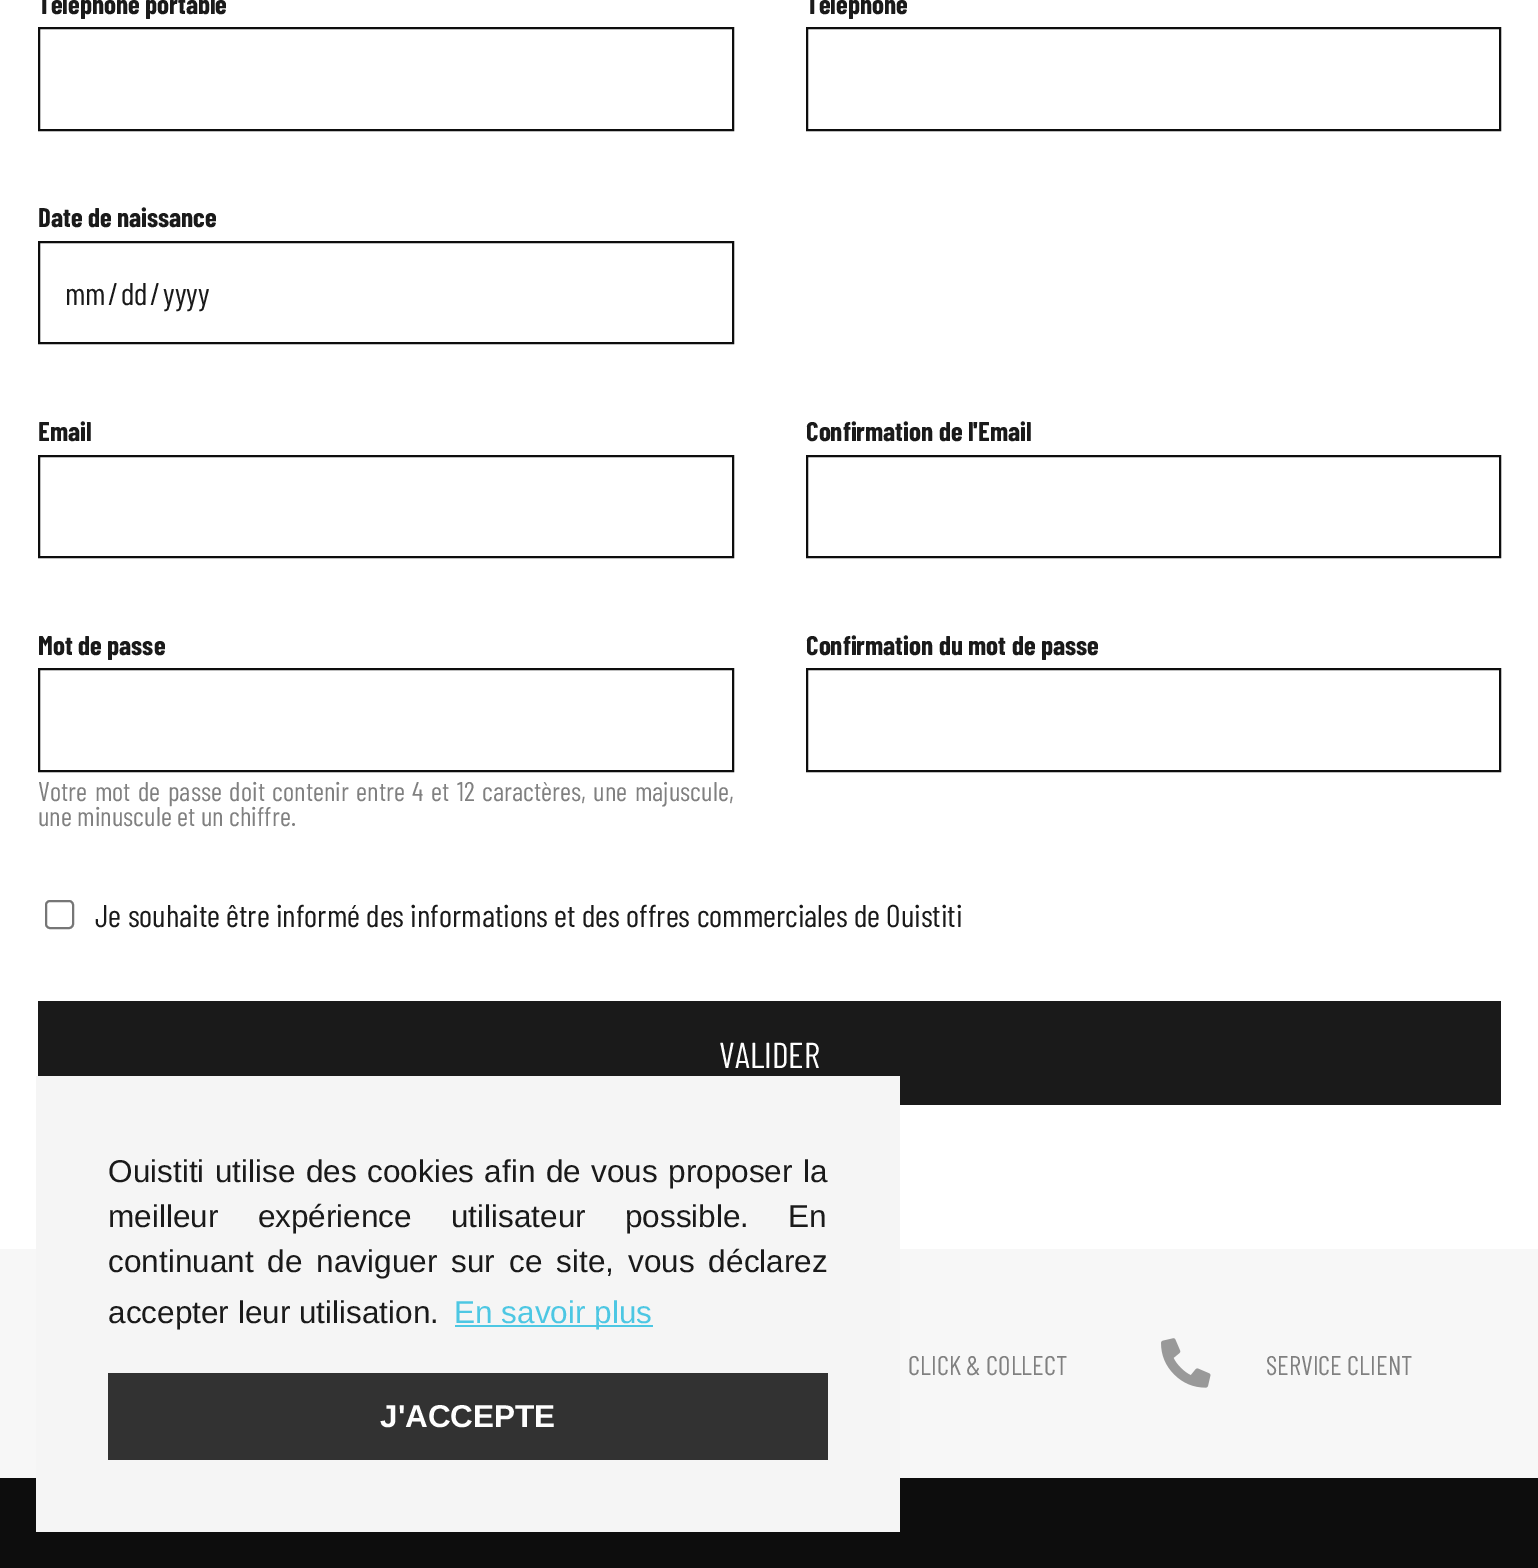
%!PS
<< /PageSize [1538 1568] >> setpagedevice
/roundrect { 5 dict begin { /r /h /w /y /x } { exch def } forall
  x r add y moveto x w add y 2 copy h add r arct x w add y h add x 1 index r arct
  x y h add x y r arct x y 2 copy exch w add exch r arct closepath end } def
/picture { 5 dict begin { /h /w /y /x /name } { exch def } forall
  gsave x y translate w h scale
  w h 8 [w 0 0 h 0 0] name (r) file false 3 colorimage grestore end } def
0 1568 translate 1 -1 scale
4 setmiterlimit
1 setgray
0 0 1538 1568 rectfill
/BarlowCondensed-Bold [27 0 0 -27 0 0] selectfont
0.102 setgray
38 14 moveto (Téléphone portable) show
0.051 setgray
2 setlinewidth
39 28 694 102 rectstroke
0.102 setgray
806 14 moveto (Téléphone) show
0.051 setgray
807 28 693 102 rectstroke
0.102 setgray
38 227 moveto (Date de naissance) show
0.051 setgray
39 242 694 101 rectstroke
/BarlowCondensed-Regular [31.5 0 0 -31.5 0 0] selectfont
0.102 setgray
65 305 moveto (mm) show
108 305 moveto (/) show
121 305 moveto (dd) show
150 305 moveto (/) show
163 305 moveto (yyyy) show
/BarlowCondensed-Bold [27 0 0 -27 0 0] selectfont
38 441 moveto (Email) show
0.051 setgray
39 456 694 101 rectstroke
0.102 setgray
806 441 moveto (Confirmation de l'Email) show
0.051 setgray
807 456 693 101 rectstroke
0.102 setgray
38 655 moveto (Mot de passe) show
0.051 setgray
39 669 694 102 rectstroke
/BarlowCondensed-Regular [27 0 0 -27 0 0] selectfont
0.502 setgray
38 801 moveto 2.1 0 32 (Votre mot de passe doit contenir entre 4 et 12 caractères, une majuscule,) widthshow
38 826 moveto (une minuscule et un chiffre.) show
/BarlowCondensed-Bold [27 0 0 -27 0 0] selectfont
0.102 setgray
806 655 moveto (Confirmation du mot de passe) show
0.051 setgray
807 669 693 102 rectstroke
0.463 setgray
46 901 27 27 4 roundrect stroke
/BarlowCondensed-Regular [31.5 0 0 -31.5 0 0] selectfont
0.102 setgray
95 927 moveto (Je souhaite être informé des informations et des offres commerciales de Ouistiti) show
38 1001 1463 104 rectfill
/BarlowCondensed-Regular [36 0 0 -36 0 0] selectfont
0.996 setgray
719 1068 moveto (VALIDER) show
0.969 setgray
0 1249 1538 229 rectfill
/BarlowCondensed-Regular [27 0 0 -27 0 0] selectfont
0.502 setgray
908 1375 moveto (CLICK & COLLECT) show
(img1.rgb) 1161 1338 50 50 picture
1266 1375 moveto (SERVICE CLIENT) show
0.051 setgray
0 1478 1538 90 rectfill
0.961 setgray
36 1076 864 456 rectfill
/LiberationSans-Regular [31.5 0 0 -31.5 0 0] selectfont
0.102 setgray
108 1182 moveto 1.75 0 32 (Ouistiti utilise des cookies afin de vous proposer la) widthshow
108 1227 moveto 30.5 0 32 (meilleur expérience utilisateur possible. En) widthshow
108 1272 moveto 5.25 0 32 (continuant de naviguer sur ce site, vous déclarez) widthshow
108 1323 moveto (accepter leur utilisation.) show
0.302 0.78 0.89 setrgbcolor
455 1325 198 2 rectfill
454 1323 moveto (En savoir plus) show
0.196 setgray
108 1373 720 87 rectfill
/LiberationSans-Bold [31.5 0 0 -31.5 0 0] selectfont
0.996 setgray
380 1427 moveto (J'ACCEPTE) show
showpage
